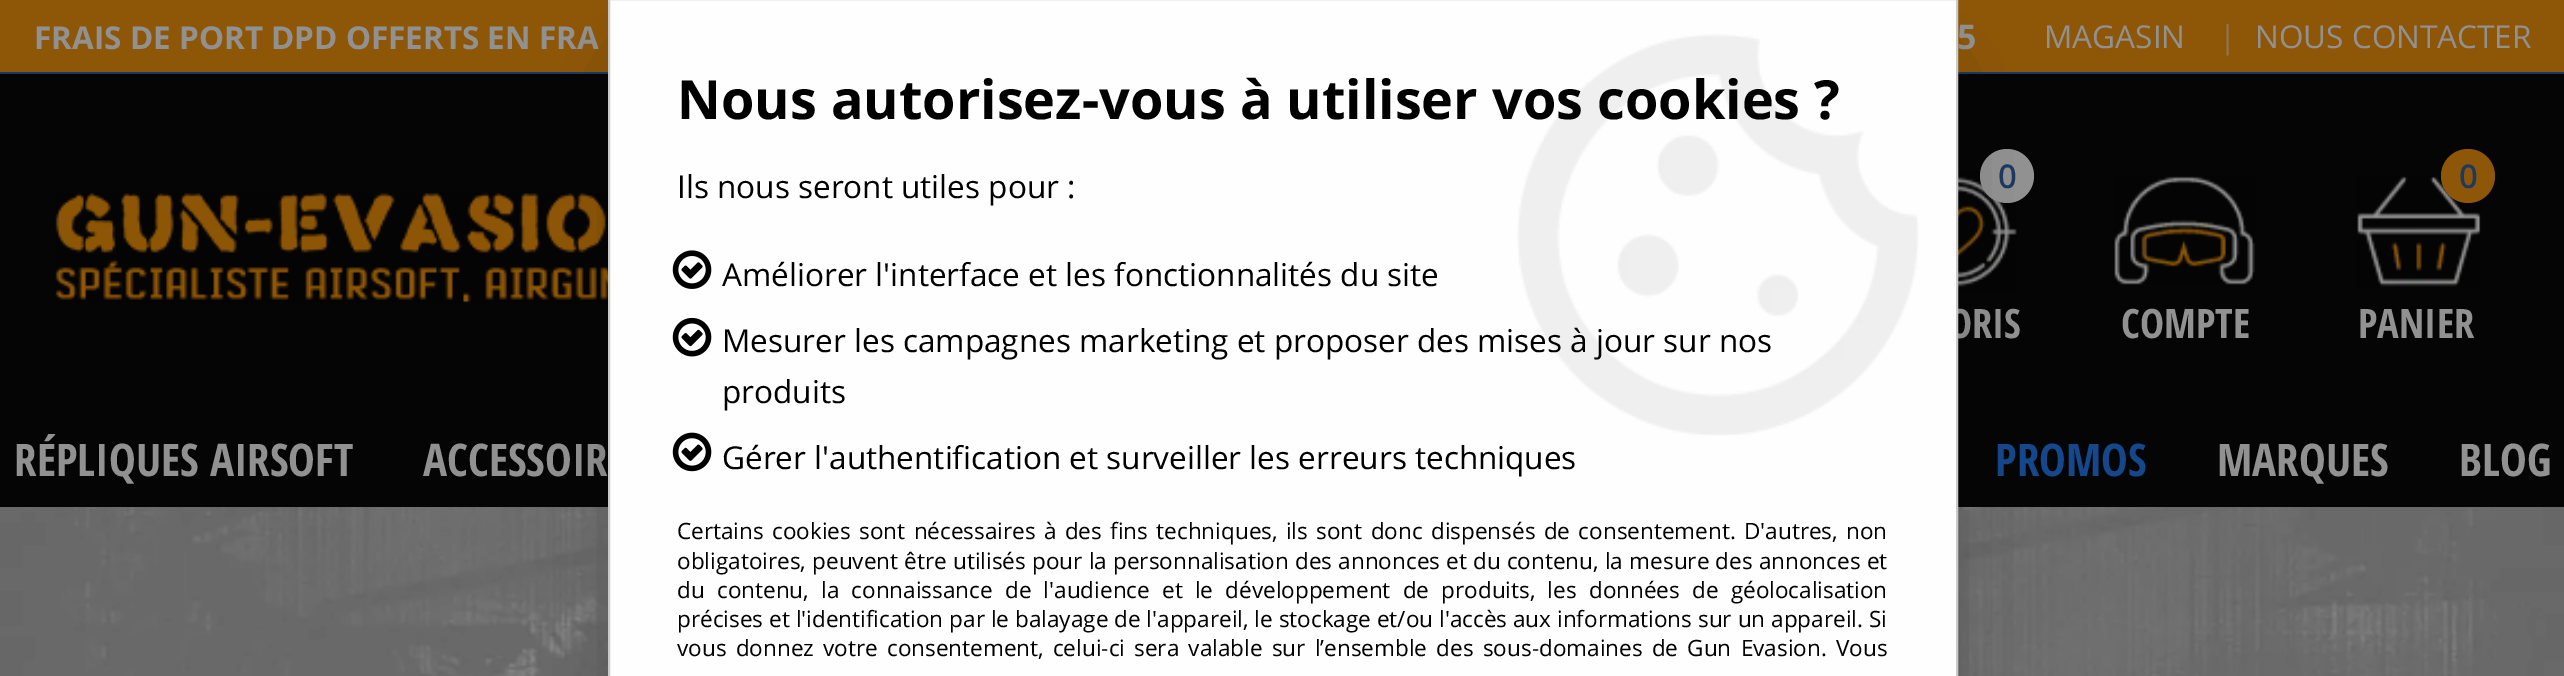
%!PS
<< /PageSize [2564 676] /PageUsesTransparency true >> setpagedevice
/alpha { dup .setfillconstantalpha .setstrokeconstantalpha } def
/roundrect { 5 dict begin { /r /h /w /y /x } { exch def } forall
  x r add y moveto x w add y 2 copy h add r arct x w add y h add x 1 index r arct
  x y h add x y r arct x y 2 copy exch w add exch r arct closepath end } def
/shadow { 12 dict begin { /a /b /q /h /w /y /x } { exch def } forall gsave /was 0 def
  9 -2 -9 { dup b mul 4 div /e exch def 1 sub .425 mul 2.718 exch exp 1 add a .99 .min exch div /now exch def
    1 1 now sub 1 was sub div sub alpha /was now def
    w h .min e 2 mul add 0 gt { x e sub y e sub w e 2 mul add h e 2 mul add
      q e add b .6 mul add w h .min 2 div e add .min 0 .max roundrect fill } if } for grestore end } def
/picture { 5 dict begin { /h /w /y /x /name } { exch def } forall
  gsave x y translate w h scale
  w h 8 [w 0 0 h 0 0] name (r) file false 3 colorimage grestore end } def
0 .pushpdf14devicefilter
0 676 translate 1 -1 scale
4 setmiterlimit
1 setgray
0 0 2564 676 rectfill
0.557 0.337 0.027 setrgbcolor
0 0 2564 72 rectfill
/OpenSans-Bold [31.5 0 0 -31.5 0 0] selectfont
0.569 setgray
34 49 moveto (FRAIS DE PORT DPD OFFERTS EN FRA) show
/OpenSans-Bold [34 0 0 -34 0 0] selectfont
1957 49 moveto (5) show
/OpenSans-Regular [31.5 0 0 -31.5 0 0] selectfont
2044 48 moveto (MAGASIN) show
0.565 0.455 0.298 setrgbcolor
2219 48 moveto (|) show
0.569 setgray
2255 48 moveto (NOUS CONTACTER) show
0.02 setgray
0 502 2564 5 rectfill
0.11 0.224 0.384 setrgbcolor
0 72 2564 2 rectfill
0.02 setgray
0 74 2564 428 rectfill
(img1.rgb) 55 193 553 110 picture
(img2.rgb) 1958 171 59 121 picture
0.569 setgray
newpath 2007 176 27 0 360 arc closepath fill
/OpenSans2-Bold [31.5 0 0 -31.5 0 0] selectfont
0.11 0.224 0.384 setrgbcolor
1998 188 moveto (0) show
/OpenSansCondensed-Bold [40.5 0 0 -40.5 0 0] selectfont
0.569 setgray
1948 338 moveto (ORIS) show
(img3.rgb) 2114 176 141 109 picture
2121 338 moveto (COMPTE) show
(img4.rgb) 2357 176 124 111 picture
0.557 0.337 0.027 setrgbcolor
newpath 2468 176 27 0 360 arc closepath fill
/OpenSans2-Bold [31.5 0 0 -31.5 0 0] selectfont
0.11 0.224 0.384 setrgbcolor
2459 188 moveto (0) show
/OpenSansCondensed-Bold [40.5 0 0 -40.5 0 0] selectfont
0.569 setgray
2358 338 moveto (PANIER) show
/OpenSansCondensed-Bold [45 0 0 -45 0 0] selectfont
14 476 moveto (RÉPLIQUES AIRSOFT) show
423 476 moveto (ACCESSOIR) show
0.078 0.278 0.545 setrgbcolor
1995 476 moveto (PROMOS) show
0.569 setgray
2217 476 moveto (MARQUES) show
2459 476 moveto (BLOG) show
(img5.rgb) 0 507 2564 169 picture
0 setgray
653 88 1260 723 0 45 0.5 shadow
0.996 setgray
610 0 1346 676 rectfill
(img6.rgb) 1517 34 402 402 picture
0.792 setgray
2 setlinewidth
609 -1 1348 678 rectstroke
/OpenSans-Bold [54 0 0 -54 0 0] selectfont
0 setgray
677 119 moveto (Nous autorisez-vous à utiliser vos cookies ?) show
/OpenSans-Regular [31.5 0 0 -31.5 0 0] selectfont
677 198 moveto (Ils nous seront utiles pour :) show
(img7.rgb) 672 250 40 39 picture
722 286 moveto (Améliorer l'interface et les fonctionnalités du site) show
(img8.rgb) 672 317 40 40 picture
722 352 moveto (Mesurer les campagnes marketing et proposer des mises à jour sur nos) show
722 403 moveto (produits) show
(img9.rgb) 672 432 40 40 picture
722 469 moveto (Gérer l'authentification et surveiller les erreurs techniques) show
/OpenSans-Regular [22.5 0 0 -22.5 0 0] selectfont
677 539 moveto 2.5 0 32 (Certains cookies sont nécessaires à des fins techniques, ils sont donc dispensés de consentement. D'autres, non) widthshow
677 569 moveto 0.4 0 32 (obligatoires, peuvent être utilisés pour la personnalisation des annonces et du contenu, la mesure des annonces et) widthshow
677 598 moveto 6.4 0 32 (du contenu, la connaissance de l'audience et le développement de produits, les données de géolocalisation) widthshow
677 627 moveto 0.1 0 32 (précises et l'identification par le balayage de l'appareil, le stockage et/ou l'accès aux informations sur un appareil. Si) widthshow
677 656 moveto 3.4 0 32 (vous donnez votre consentement, celui-ci sera valable sur l’ensemble des sous-domaines de Gun Evasion. Vous) widthshow
.poppdf14devicefilter showpage
